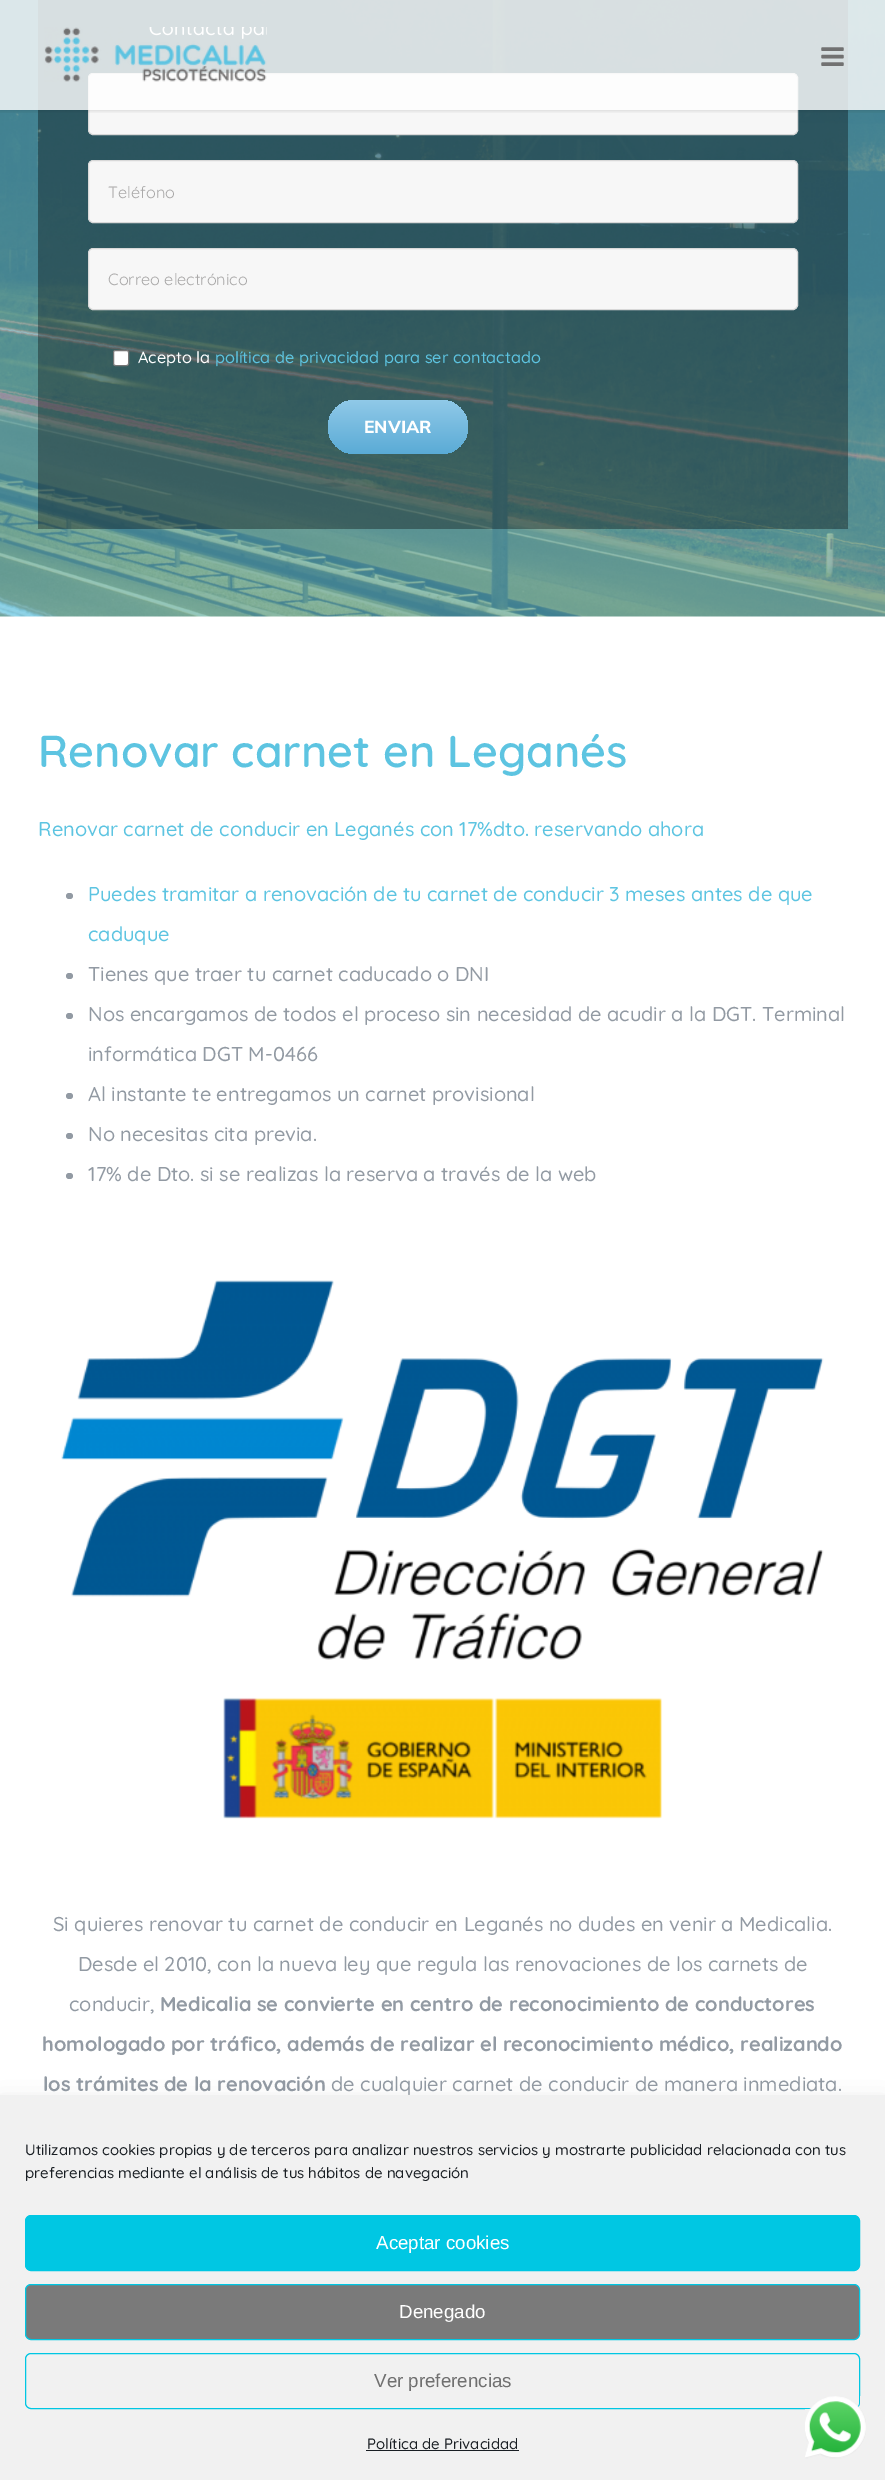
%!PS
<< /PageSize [885 2480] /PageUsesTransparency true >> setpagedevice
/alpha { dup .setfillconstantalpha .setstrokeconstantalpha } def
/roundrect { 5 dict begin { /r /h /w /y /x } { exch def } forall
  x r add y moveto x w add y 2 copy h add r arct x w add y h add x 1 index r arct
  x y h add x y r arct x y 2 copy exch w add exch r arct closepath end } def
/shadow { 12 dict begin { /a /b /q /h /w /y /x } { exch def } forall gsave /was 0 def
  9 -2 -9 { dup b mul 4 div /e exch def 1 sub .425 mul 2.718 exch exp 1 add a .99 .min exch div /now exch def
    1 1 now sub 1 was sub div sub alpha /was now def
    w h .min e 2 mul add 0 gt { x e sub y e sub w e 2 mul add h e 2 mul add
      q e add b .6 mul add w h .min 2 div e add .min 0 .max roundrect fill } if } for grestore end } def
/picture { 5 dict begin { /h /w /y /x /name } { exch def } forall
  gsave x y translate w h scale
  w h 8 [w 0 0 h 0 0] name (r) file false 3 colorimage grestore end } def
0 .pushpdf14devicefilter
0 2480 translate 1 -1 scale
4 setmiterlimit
1 setgray
0 0 885 2480 rectfill
(img3.rgb) 0 0 885 617 picture
0.35 alpha
0 setgray
38 0 810 529 rectfill
1 alpha
0.969 setgray
88.5 73.5 709 61 4.5 roundrect gsave fill grestore
0.847 setgray
stroke
gsave
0 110 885 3 rectclip
0 setgray
0 1 885 110 0 2 0.12 shadow
grestore
0.81 alpha
1 setgray
0 0 885 110 rectfill
1 alpha
(img1.rgb) 44 27 223 55 picture
(img2.rgb) 821 47 23 19 picture
0.969 setgray
88.5 160.5 709 62 4.5 roundrect gsave fill grestore
0.847 setgray
stroke
/Quicksand-Regular [16.25 0 0 -16.25 0 0] selectfont
0.667 0.663 0.663 setrgbcolor
108 198 moveto (Teléfono) show
0.969 setgray
88.5 248.5 709 61 4.5 roundrect gsave fill grestore
0.847 setgray
stroke
0.667 0.663 0.663 setrgbcolor
108 285 moveto (Correo electrónico) show
1 setgray
113.5 350.5 15 15 2 roundrect gsave fill grestore
0.463 setgray
stroke
/Quicksand-Medium [16.25 0 0 -16.25 0 0] selectfont
1 setgray
138 363 moveto (Acepto la) show
0.365 0.769 0.882 setrgbcolor
215 363 moveto (política de privacidad para ser contactado) show
gsave 328 400 140 54 27 roundrect clip newpath
<< /ShadingType 2 /ColorSpace /DeviceRGB /Coords [398 454 398 400] /Extend [true true] /Function << /FunctionType 2 /Domain [0 1] /C0 [0.353 0.671 0.839] /C1 [0.565 0.788 0.91] /N 1 >> >> shfill grestore
/Mulish-ExtraLight [17.5 0 0 -17.5 0 0] selectfont
1 setgray
364 433 moveto (ENVIAR) show
/Quicksand-SemiBold [44.6 0 0 -44.6 0 0] selectfont
0.365 0.769 0.882 setrgbcolor
38 767 moveto (Renovar carnet en Leganés) show
/Quicksand-Medium [20 0 0 -20 0 0] selectfont
38 836 moveto (Renovar carnet de conducir en Leganés con 17%dto. reservando ahora) show
0.573 0.604 0.639 setrgbcolor
66 893 7 6 3 roundrect fill
0.365 0.769 0.882 setrgbcolor
88 901 moveto (Puedes tramitar a renovación de tu carnet de conducir 3 meses antes de que) show
88 941 moveto (caduque) show
0.573 0.604 0.639 setrgbcolor
66 973 7 6 3 roundrect fill
88 981 moveto (Tienes que traer tu carnet caducado o DNI) show
66 1013 7 6 3 roundrect fill
88 1021 moveto (Nos encargamos de todos el proceso sin necesidad de acudir a la DGT. Terminal) show
88 1061 moveto (informática DGT M-0466) show
66 1093 7 6 3 roundrect fill
88 1101 moveto (Al instante te entregamos un carnet provisional) show
66 1133 7 6 3 roundrect fill
88 1141 moveto (No necesitas cita previa.) show
66 1173 7 6 3 roundrect fill
88 1181 moveto (17% de Dto. si se realizas la reserva a través de la web) show
(img4.rgb) 61 1280 763 539 picture
53 1931 moveto (Si quieres renovar tu carnet de conducir en Leganés no dudes en venir a Medicalia.) show
78 1971 moveto (Desde el 2010, con la nueva ley que regula las renovaciones de los carnets de) show
69 2011 moveto (conducir,) show
/Quicksand-Bold [20 0 0 -20 0 0] selectfont
160 2011 moveto (Medicalia se convierte en centro de reconocimiento de conductores) show
42 2051 moveto (homologado por tráfico, además de realizar el reconocimiento médico, realizando) show
43 2091 moveto (los trámites de la renovación) show
/Quicksand-Medium [20 0 0 -20 0 0] selectfont
331 2091 moveto (de cualquier carnet de conducir de manera inmediata.) show
0 setgray
0 2108 885 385 0 12.5 0.19 shadow
0.945 setgray
0 2095 885 385 rectfill
/Quicksand-Medium [15 0 0 -15 0 0] selectfont
0.098 0.118 0.137 setrgbcolor
25 2155 moveto (Utilizamos cookies propias y de terceros para analizar nuestros servicios y mostrarte publicidad relacionada con tus) show
25 2178 moveto (preferencias mediante el análisis de tus hábitos de navegación) show
0 0.78 0.89 setrgbcolor
25.5 2215.5 834 55 5.5 roundrect gsave fill grestore
stroke
/LiberationSans-Regular [18.75 0 0 -18.75 0 0] selectfont
1 setgray
376 2249 moveto (Aceptar cookies) show
0.478 setgray
25.5 2284.5 834 55 5.5 roundrect gsave fill grestore
0 0.78 0.89 setrgbcolor
stroke
1 setgray
399 2318 moveto (Denegado) show
0 0.78 0.89 setrgbcolor
25.5 2353.5 834 55 5.5 roundrect stroke
0.439 setgray
374 2387 moveto (Ver preferencias) show
/Quicksand-Medium [15 0 0 -15 0 0] selectfont
0.098 0.118 0.137 setrgbcolor
367 2449 moveto (Política de Privacidad) show
366 2450 153 1 rectfill
(img5.rgb) 805 2396 61 63 picture
.poppdf14devicefilter showpage
